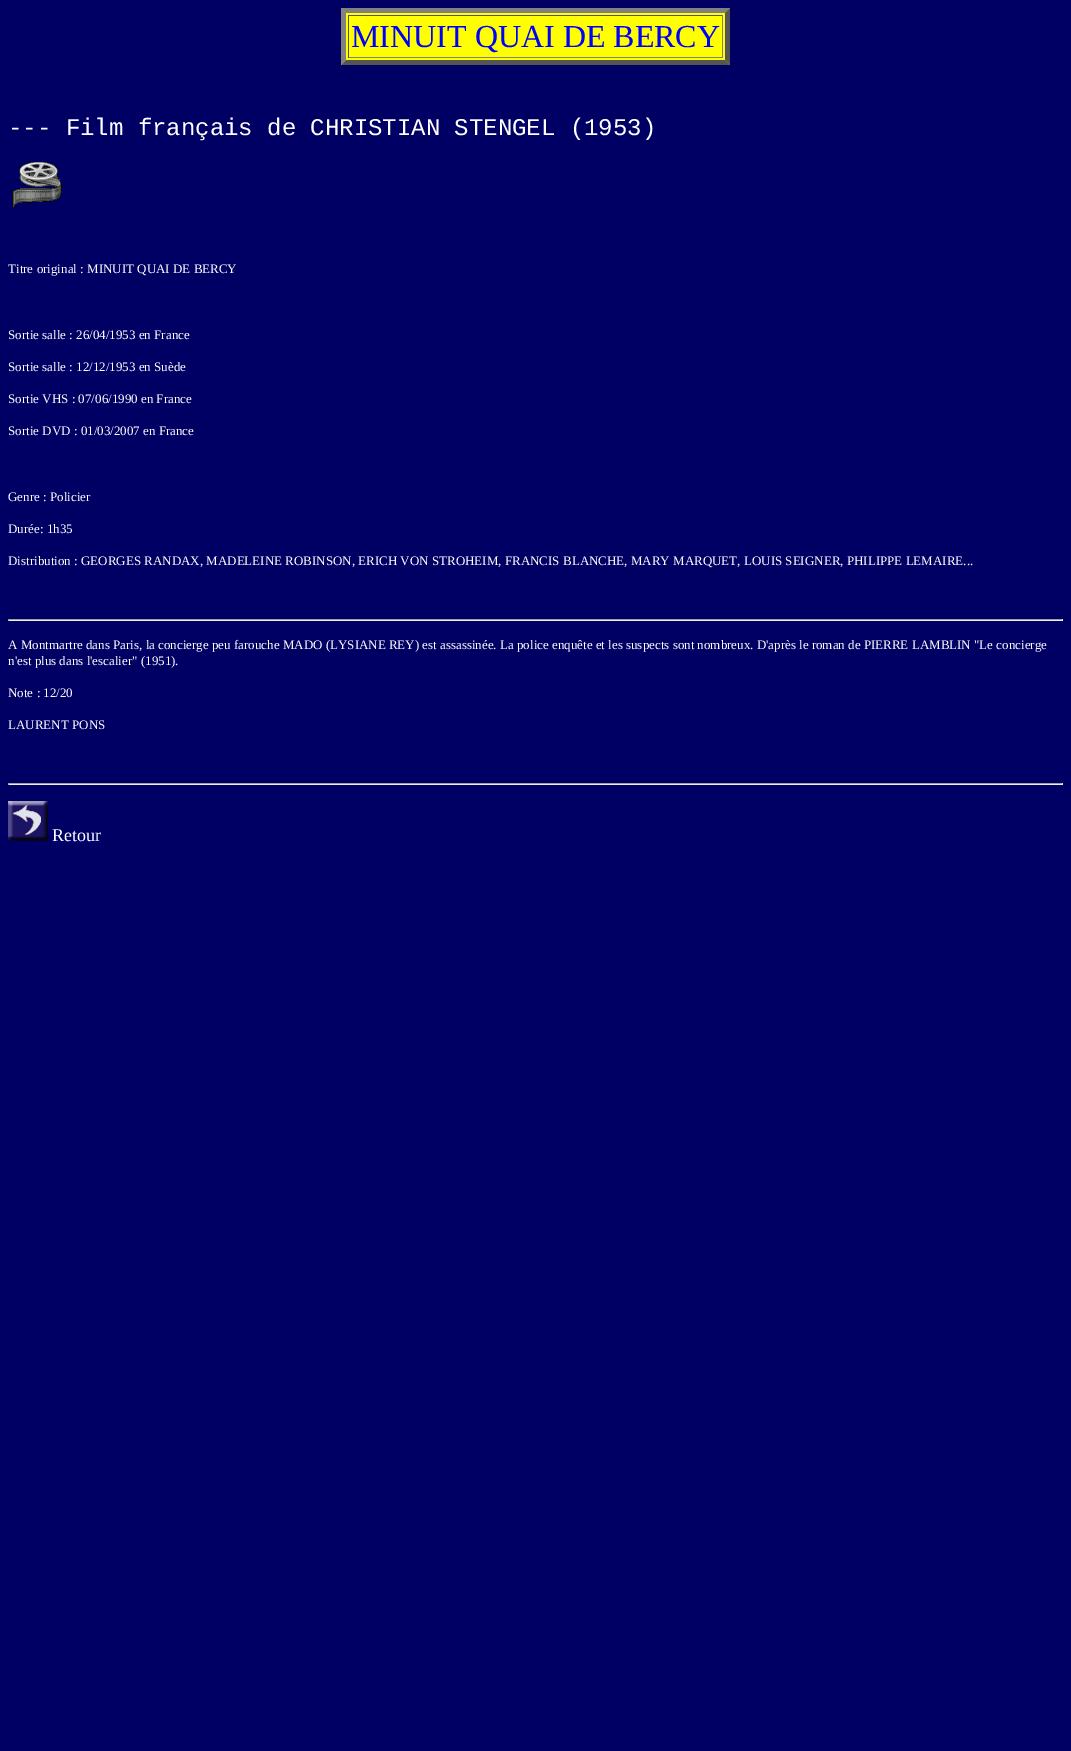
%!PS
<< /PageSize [1071 1751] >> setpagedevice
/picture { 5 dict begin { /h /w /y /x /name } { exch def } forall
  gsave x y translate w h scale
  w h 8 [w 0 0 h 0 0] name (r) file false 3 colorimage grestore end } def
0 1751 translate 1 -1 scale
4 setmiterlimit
0 0 0.392 setrgbcolor
0 0 1071 1751 rectfill
1 1 0 setrgbcolor
341 8 389 57 rectfill
0.502 setgray
newpath 341 8 moveto 730 8 lineto 725 13 lineto 346 13 lineto closepath fill
0.333 setgray
newpath 730 8 moveto 730 65 lineto 725 60 lineto 725 13 lineto closepath fill
newpath 730 65 moveto 341 65 lineto 346 60 lineto 725 60 lineto closepath fill
0.502 setgray
newpath 341 65 moveto 341 8 lineto 346 13 lineto 346 60 lineto closepath fill
0.333 setgray
348 15 375 1 rectfill
0.502 setgray
722 15 1 43 rectfill
348 57 375 1 rectfill
0.333 setgray
348 15 1 43 rectfill
/LiberationSerif-Regular [32 0 0 -32 0 0] selectfont
0 0 1 setrgbcolor
351 47 moveto (MINUIT QUAI DE BERCY) show
/LiberationMono-Regular [24 0 0 -24 0 0] selectfont
1 setgray
8 135 moveto (--- Film français de CHRISTIAN STENGEL \(1953\)) show
(img1.rgb) 12 162 50 45 picture
/LiberationSerif-Regular [13 0 0 -13 0 0] selectfont
8 273 moveto (Titre original : MINUIT QUAI DE BERCY) show
8 339 moveto (Sortie salle : 26/04/1953 en France) show
8 371 moveto (Sortie salle : 12/12/1953 en Suède) show
8 403 moveto (Sortie VHS : 07/06/1990 en France) show
8 435 moveto (Sortie DVD : 01/03/2007 en France) show
8 501 moveto (Genre : Policier) show
8 533 moveto (Durée: 1h35) show
8 565 moveto (Distribution : GEORGES RANDAX, MADELEINE ROBINSON, ERICH VON STROHEIM, FRANCIS BLANCHE, MARY MARQUET, LOUIS SEIGNER, PHILIPPE LEMAIRE...) show
0.624 setgray
8 619 1055 1 rectfill
0.933 setgray
1062 619 1 2 rectfill
8 620 1055 1 rectfill
0.624 setgray
8 619 1 2 rectfill
1 setgray
8 649 moveto (A Montmartre dans Paris, la concierge peu farouche MADO \(LYSIANE REY\) est assassinée. La police enquête et les suspects sont nombreux. D'après le roman de PIERRE LAMBLIN "Le concierge) show
8 665 moveto (n'est plus dans l'escalier" \(1951\).) show
8 697 moveto (Note : 12/20) show
8 729 moveto (LAURENT PONS) show
0.624 setgray
8 783 1055 1 rectfill
0.933 setgray
1062 783 1 2 rectfill
8 784 1055 1 rectfill
0.624 setgray
8 783 1 2 rectfill
(img2.rgb) 8 801 40 40 picture
/LiberationSerif-Regular [18 0 0 -18 0 0] selectfont
1 setgray
52 841 moveto (Retour) show
0 0 0.502 setrgbcolor
52 842 49 1 rectfill
showpage
